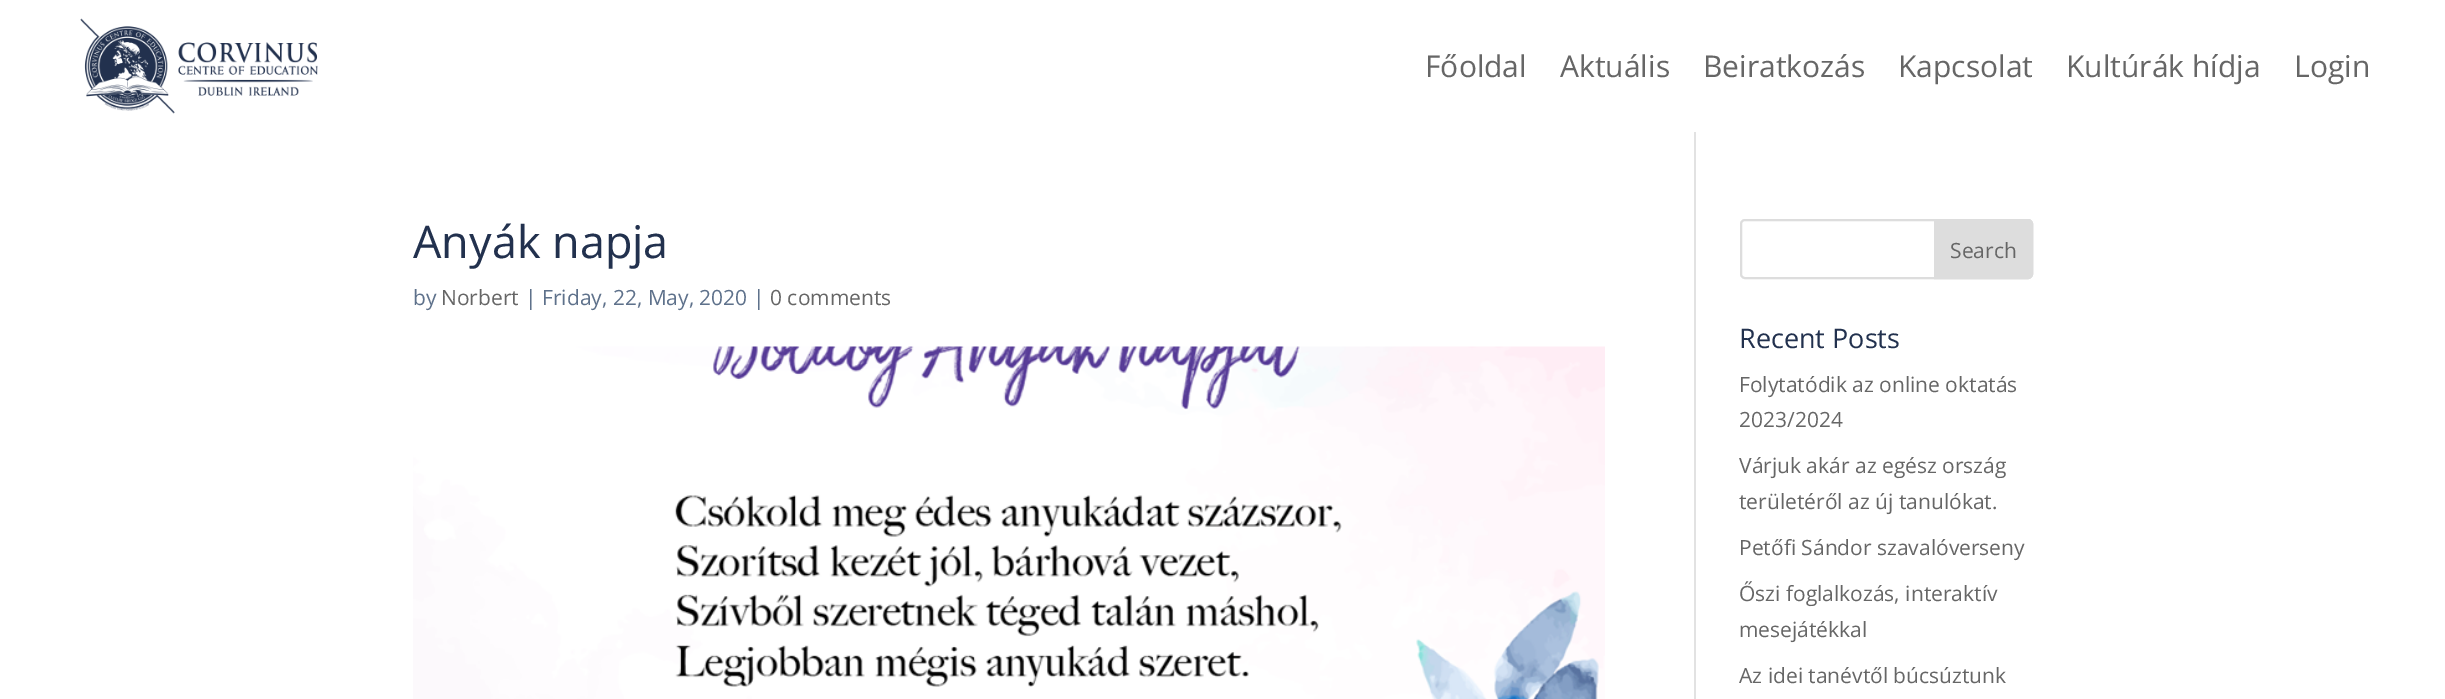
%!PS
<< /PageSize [2445 699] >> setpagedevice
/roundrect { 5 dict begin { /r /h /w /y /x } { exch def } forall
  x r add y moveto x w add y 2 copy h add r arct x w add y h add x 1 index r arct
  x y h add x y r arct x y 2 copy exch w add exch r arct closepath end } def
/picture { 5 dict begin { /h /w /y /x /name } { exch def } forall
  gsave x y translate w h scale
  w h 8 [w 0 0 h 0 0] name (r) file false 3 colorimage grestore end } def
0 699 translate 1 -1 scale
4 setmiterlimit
1 setgray
0 0 2445 699 rectfill
(img1.rgb) 80 18 238 96 picture
/OpenSans-Regular [30 0 0 -30 0 0] selectfont
0.4 setgray
1425 77 moveto (Főoldal) show
1560 77 moveto (Aktuális) show
1703 77 moveto (Beiratkozás) show
1898 77 moveto (Kapcsolat) show
2066 77 moveto (Kultúrák hídja) show
2294 77 moveto (Login) show
0.886 setgray
1694 132 2 567 rectfill
/OpenSans-Regular [45 0 0 -45 0 0] selectfont
0.133 0.192 0.306 setrgbcolor
413 258 moveto (Anyák napja) show
/OpenSans-Regular [21 0 0 -21 0 0] selectfont
0.369 0.443 0.545 setrgbcolor
413 305 moveto (by) show
0.4 setgray
441 305 moveto (Norbert) show
0.369 0.443 0.545 setrgbcolor
525 305 moveto (| Friday, 22, May, 2020 |) show
0.4 setgray
770 305 moveto (0 comments) show
(img2.rgb) 413 346 1192 353 picture
0.867 setgray
2 setlinewidth
1741 220 291 58 4 roundrect stroke
newpath 1935 220 moveto 2028 220 lineto 2030 220 2032 222 2032 224 curveto 2032 274 lineto 2032 276 2030 278 2028 278 curveto 1935 278 lineto closepath gsave fill grestore
stroke
0.4 setgray
1950 258 moveto (Search) show
/OpenSans-Regular [27 0 0 -27 0 0] selectfont
0.133 0.192 0.306 setrgbcolor
1739 348 moveto (Recent Posts) show
/OpenSans-Regular [21 0 0 -21 0 0] selectfont
0.4 setgray
1739 392 moveto (Folytatódik az online oktatás) show
1739 427 moveto (2023/2024) show
1739 473 moveto (Várjuk akár az egész ország) show
1739 509 moveto (területéről az új tanulókat.) show
1739 555 moveto (Petőfi Sándor szavalóverseny) show
1739 601 moveto (Őszi foglalkozás, interaktív) show
1739 637 moveto (mesejátékkal) show
1739 683 moveto (Az idei tanévtől búcsúztunk) show
showpage
